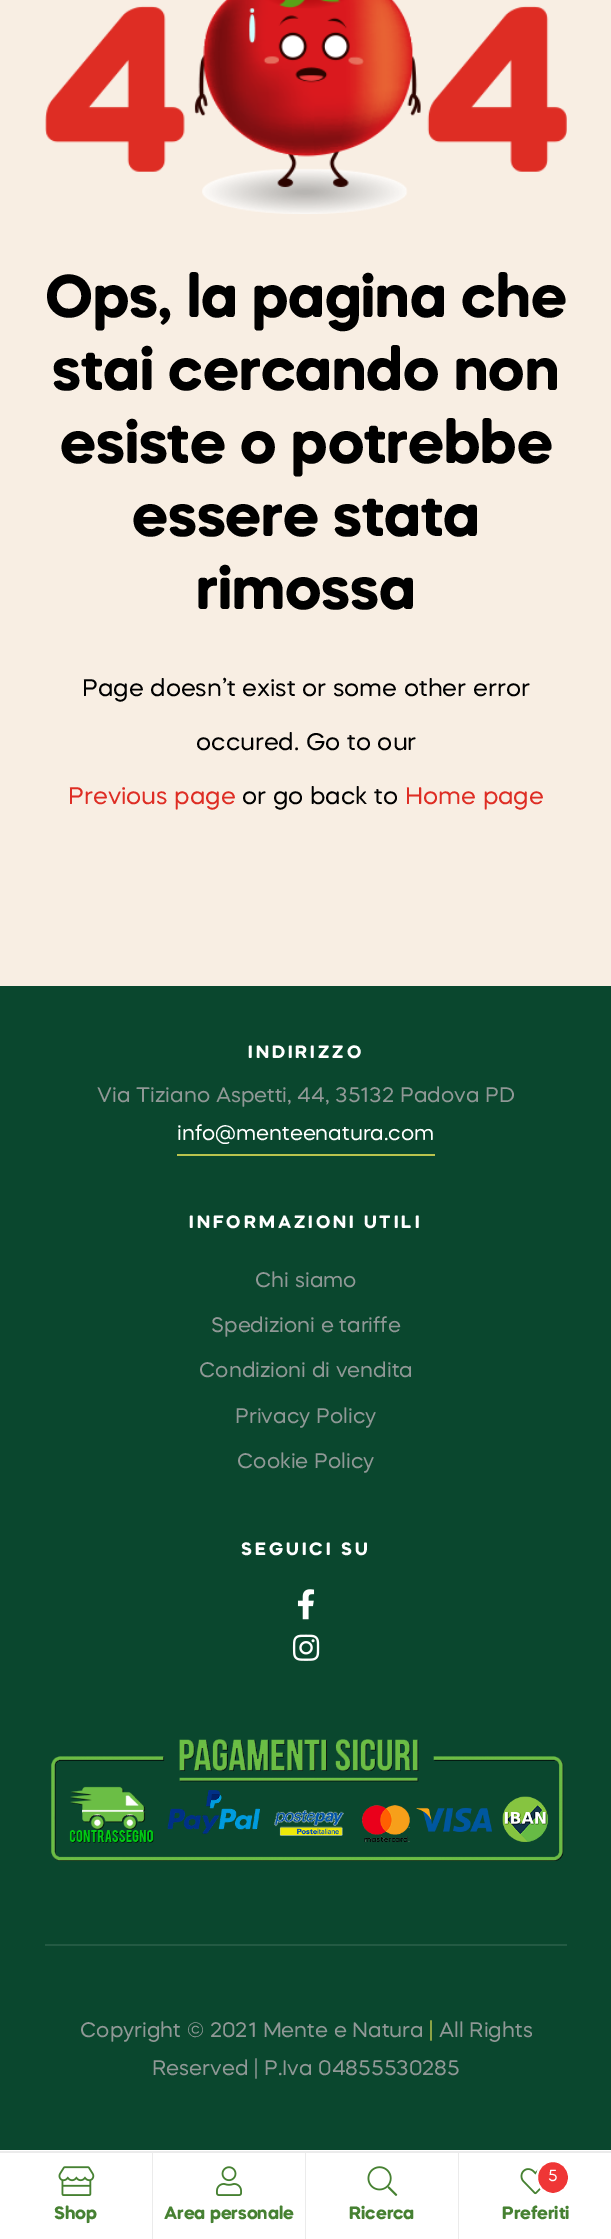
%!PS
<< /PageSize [611 2239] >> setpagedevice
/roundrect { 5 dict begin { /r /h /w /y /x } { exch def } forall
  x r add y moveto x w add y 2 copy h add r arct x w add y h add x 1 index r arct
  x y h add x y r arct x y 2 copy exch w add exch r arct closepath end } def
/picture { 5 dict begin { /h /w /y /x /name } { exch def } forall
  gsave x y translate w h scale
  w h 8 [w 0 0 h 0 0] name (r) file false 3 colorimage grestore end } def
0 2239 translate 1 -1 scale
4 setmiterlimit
1 setgray
0 0 611 2239 rectfill
0.973 0.933 0.89 setrgbcolor
0 0 611 986 rectfill
(img1.rgb) 45 0 522 214 picture
/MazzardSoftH-Bold [60 0 0 -60 0 0] selectfont
0 setgray
45 317 moveto (Ops, la pagina che) show
52 390 moveto (stai cercando non) show
60 463 moveto (esiste o potrebbe) show
132 536 moveto (essere stata) show
196 609 moveto (rimossa) show
/MazzardSoftH-Regular [24 0 0 -24 0 0] selectfont
82 696 moveto (Page doesn’t exist or some other error) show
196 750 moveto (occured. Go to our) show
0.871 0.176 0.141 setrgbcolor
68 804 moveto (Previous page) show
0 setgray
242 804 moveto (or go back to) show
0.871 0.176 0.141 setrgbcolor
405 804 moveto (Home page) show
0.039 0.278 0.18 setrgbcolor
0 986 611 1164 rectfill
0.137 0.353 0.263 setrgbcolor
45 1944 522 2 rectfill
/MazzardSoftH-Bold [18 0 0 -18 0 0] selectfont
1 setgray
248 1058 moveto 3 0 (INDIRIZZO) ashow
/MazzardSoftH-Regular [21 0 0 -21 0 0] selectfont
0.565 0.596 0.588 setrgbcolor
97 1102 moveto (Via Tiziano Aspetti, 44, 35132 Padova PD) show
0.729 0.765 0.306 setrgbcolor
177 1154 258 2 rectfill
1 setgray
177 1140 moveto (info@menteenatura.com) show
/MazzardSoftH-Bold [18 0 0 -18 0 0] selectfont
189 1228 moveto 3 0 (INFORMAZIONI UTILI) ashow
/MazzardSoftH-Regular [21 0 0 -21 0 0] selectfont
0.565 0.596 0.588 setrgbcolor
255 1287 moveto (Chi siamo) show
211 1332 moveto (Spedizioni e tariffe) show
199 1377 moveto (Condizioni di vendita) show
235 1423 moveto (Privacy Policy) show
237 1468 moveto (Cookie Policy) show
/MazzardSoftH-Bold [18 0 0 -18 0 0] selectfont
1 setgray
241 1555 moveto 3 0 (SEGUICI SU) ashow
(img2.rgb) 297 1589 18 31 picture
(img3.rgb) 292 1634 28 27 picture
(img4.rgb) 51 1739 513 122 picture
/MazzardSoftH-Regular [21 0 0 -21 0 0] selectfont
0.565 0.596 0.588 setrgbcolor
80 2037 moveto (Copyright © 2021 Mente e Natura) show
0.729 0.765 0.306 setrgbcolor
429 2037 moveto (|) show
0.565 0.596 0.588 setrgbcolor
439 2037 moveto (All Rights) show
152 2075 moveto (Reserved | P.Iva 04855530285) show
0.922 setgray
0 2151 611 2 rectfill
152 2151 1 88 rectfill
(img5.rgb) 58 2166 37 30 picture
/MazzardSoftH-Bold [18 0 0 -18 0 0] selectfont
0.275 0.506 0.196 setrgbcolor
54 2219 moveto (Shop) show
0.922 setgray
305 2151 1 88 rectfill
(img6.rgb) 216 2166 26 30 picture
0.275 0.506 0.196 setrgbcolor
164 2219 moveto (Area personale) show
0.922 setgray
458 2151 1 88 rectfill
(img7.rgb) 367 2166 31 30 picture
0.275 0.506 0.196 setrgbcolor
349 2219 moveto (Ricerca) show
(img8.rgb) 520 2168 21 27 picture
0.937 0.212 0.212 setrgbcolor
537 2161 32 33 16 roundrect gsave fill grestore
1 setgray
2 setlinewidth
stroke
/MazzardSoftH-Regular [16 0 0 -16 0 0] selectfont
548 2181 moveto (5) show
/MazzardSoftH-Bold [18 0 0 -18 0 0] selectfont
0.275 0.506 0.196 setrgbcolor
502 2219 moveto (Preferiti) show
showpage
